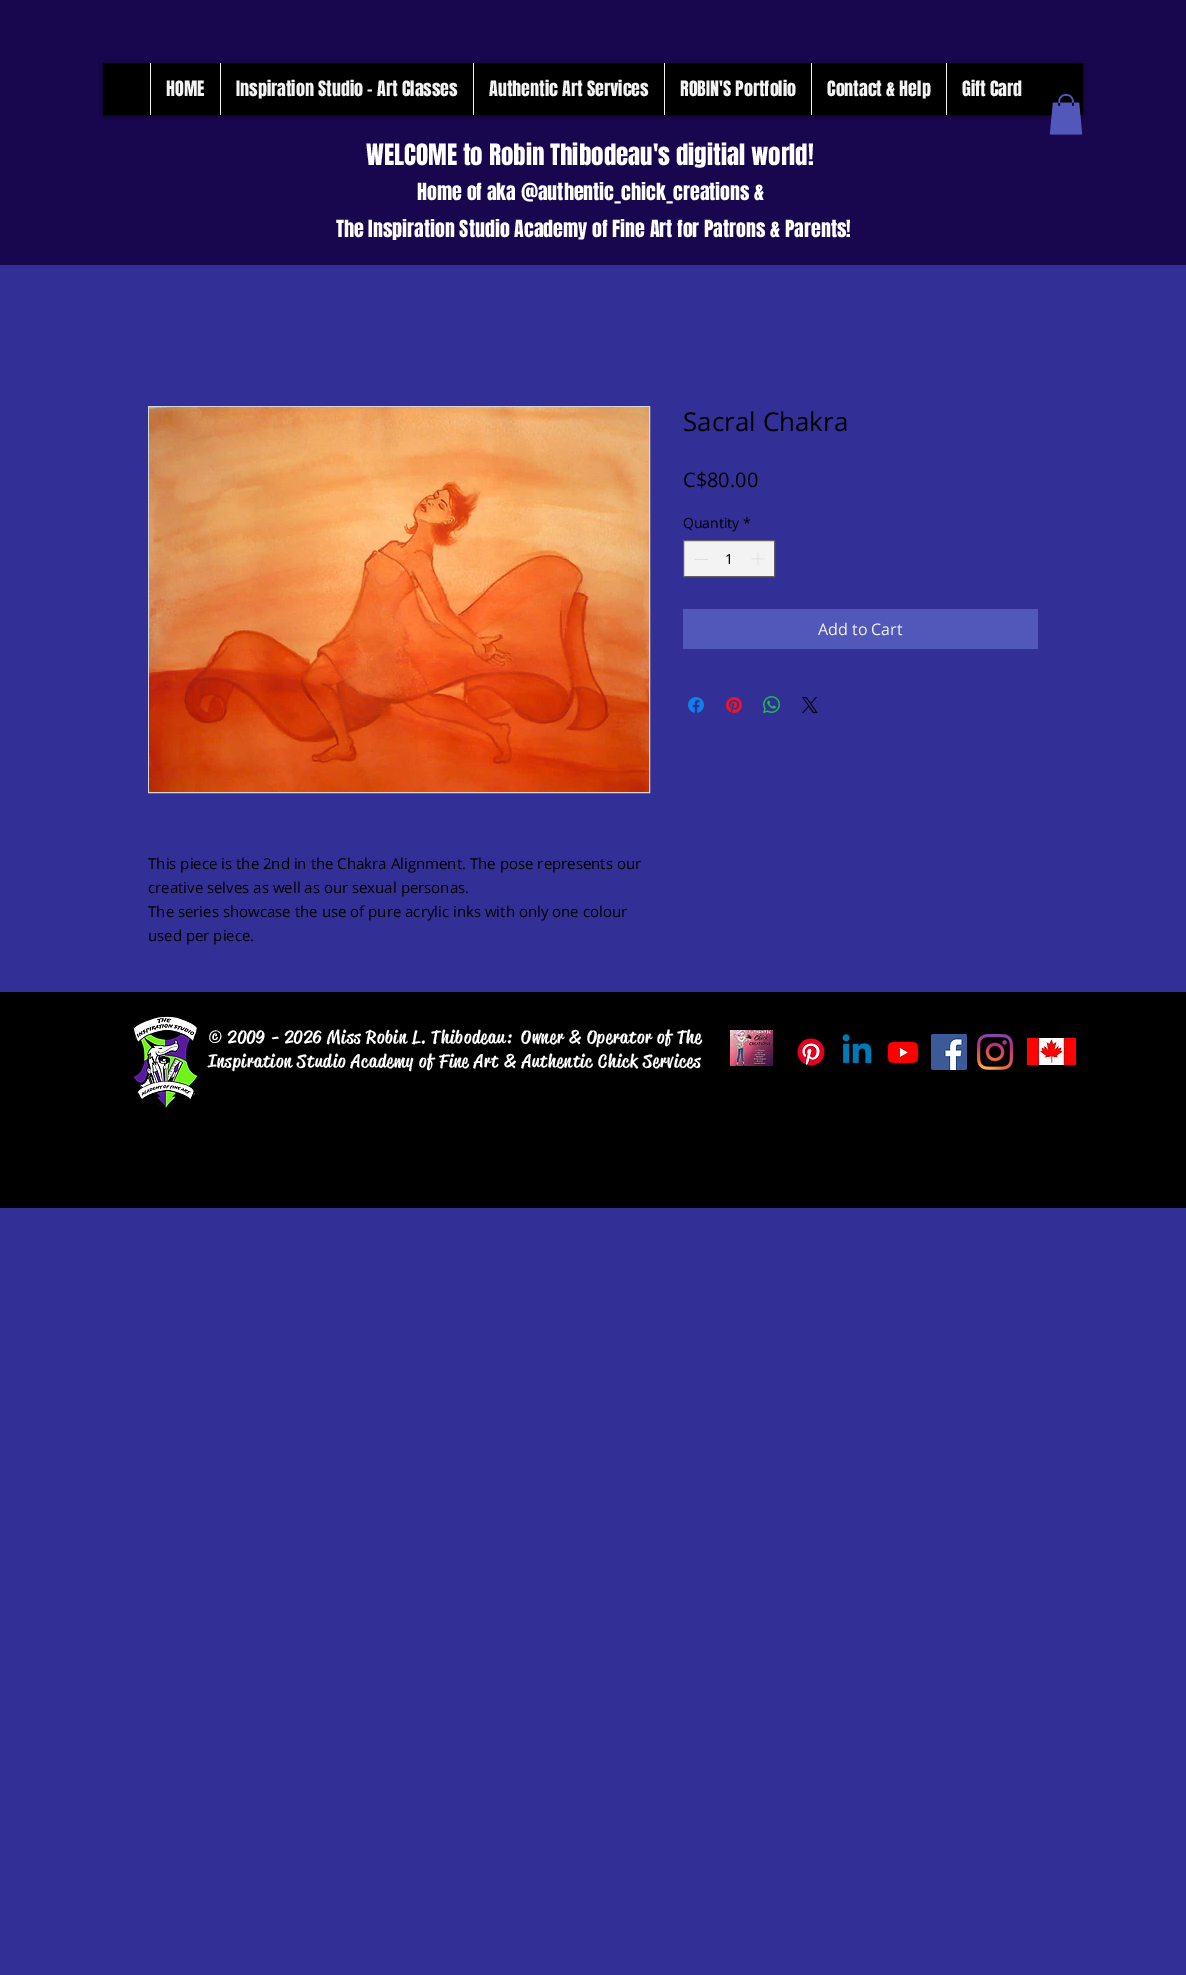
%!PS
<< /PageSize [1186 1975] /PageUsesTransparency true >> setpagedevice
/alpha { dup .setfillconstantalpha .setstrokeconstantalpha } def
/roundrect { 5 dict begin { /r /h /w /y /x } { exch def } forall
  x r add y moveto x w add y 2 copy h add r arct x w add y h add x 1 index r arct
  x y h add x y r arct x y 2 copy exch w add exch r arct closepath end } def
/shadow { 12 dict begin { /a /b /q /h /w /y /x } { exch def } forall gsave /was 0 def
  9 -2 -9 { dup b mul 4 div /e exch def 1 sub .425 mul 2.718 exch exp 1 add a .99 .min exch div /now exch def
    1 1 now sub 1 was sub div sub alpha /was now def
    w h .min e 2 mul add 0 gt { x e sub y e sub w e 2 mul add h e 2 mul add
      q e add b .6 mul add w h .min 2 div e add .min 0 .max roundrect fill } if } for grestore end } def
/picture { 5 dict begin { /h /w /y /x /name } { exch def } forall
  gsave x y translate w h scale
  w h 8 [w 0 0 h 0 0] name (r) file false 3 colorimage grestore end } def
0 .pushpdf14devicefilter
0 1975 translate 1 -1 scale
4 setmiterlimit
0.196 0.188 0.588 setrgbcolor
0 0 1186 1975 rectfill
0.094 0.024 0.306 setrgbcolor
0 0 1186 265 rectfill
0 setgray
103 64 980 52 0 2 0.6 shadow
103 63 980 52 rectfill
0.953 setgray
150 63 1 52 rectfill
/Anton-Regular [18 0 0 -18 0 0] selectfont
166 96 moveto (HOME) show
220 63 1 52 rectfill
236 96 moveto (Inspiration Studio - Art Classes) show
473 63 1 52 rectfill
489 96 moveto (Authentic Art Services) show
664 63 1 52 rectfill
680 96 moveto (ROBIN'S Portfolio) show
811 63 1 52 rectfill
827 96 moveto (Contact & Help) show
946 63 1 52 rectfill
962 96 moveto (Gift Card) show
(img1.rgb) 1049 94 34 41 picture
/Anton-Regular [25 0 0 -25 0 0] selectfont
1 setgray
366 165 moveto (WELCOME to Robin Thibodeau's digitial world!) show
/Anton-Regular [20 0 0 -20 0 0] selectfont
417 200 moveto (Home of aka @authentic_chick_creations &) show
336 237 moveto (The Inspiration Studio Academy of Fine Art for Patrons & Parents!) show
/OpenSans-Regular [26 0 0 -26 0 0] selectfont
0 setgray
683 431 moveto (Sacral Chakra) show
/OpenSans-Regular [20 0 0 -20 0 0] selectfont
683 487 moveto (C$80.00) show
/OpenSans-Regular [14 0 0 -14 0 0] selectfont
683 528 moveto (Quantity) show
743 528 moveto (*) show
0.953 setgray
newpath 683.5 540.5 moveto 774.5 540.5 lineto 774.5 576.5 lineto 683.5 576.5 lineto closepath gsave fill grestore
0.38 setgray
stroke
0.867 setgray
695 559 13 1 rectfill
0 setgray
725 564 moveto (1) show
(img2.rgb) 751 552 14 14 picture
0.322 0.341 0.729 setrgbcolor
683 609 355 40 rectfill
/OpenSans-Regular [16 0 0 -16 0 0] selectfont
0.953 setgray
818 635 moveto (Add to Cart) show
(img3.rgb) 688 697 16 16 picture
(img4.rgb) 726 697 16 16 picture
(img5.rgb) 763 696 17 17 picture
(img6.rgb) 802 697 16 16 picture
0.839 setgray
148.5 406.5 501 386 rectstroke
(img7.rgb) 149 407 500 385 picture
/OpenSans-Regular [15 0 0 -15 0 0] selectfont
0 setgray
148 869 moveto (This piece is the 2nd in the Chakra Alignment. The pose represents our) show
148 893 moveto (creative selves as well as our sexual personas.) show
148 917 moveto (The series showcase the use of pure acrylic inks with only one colour) show
148 941 moveto (used per piece.) show
0 992 1186 216 rectfill
(img8.rgb) 132 1016 67 92 picture
/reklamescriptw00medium-Medium [18 0 0 -18 0 0] selectfont
1 setgray
208 1043 moveto 0.9 0 (© 2009 - 2026 Miss Robin L. Thibodeau:) ashow
521 1043 moveto 0.9 0 (Owner & Operator of The) ashow
208 1067 moveto 0.9 0 (Inspiration Studio Academy of Fine Art & Authentic Chick Services) ashow
(img9.rgb) 730 1030 43 36 picture
(img10.rgb) 797 1038 28 28 picture
(img11.rgb) 842 1034 30 30 picture
(img12.rgb) 887 1041 32 23 picture
(img13.rgb) 931 1034 36 36 picture
(img14.rgb) 977 1034 36 36 picture
(img15.rgb) 1027 1038 49 27 picture
.poppdf14devicefilter showpage
